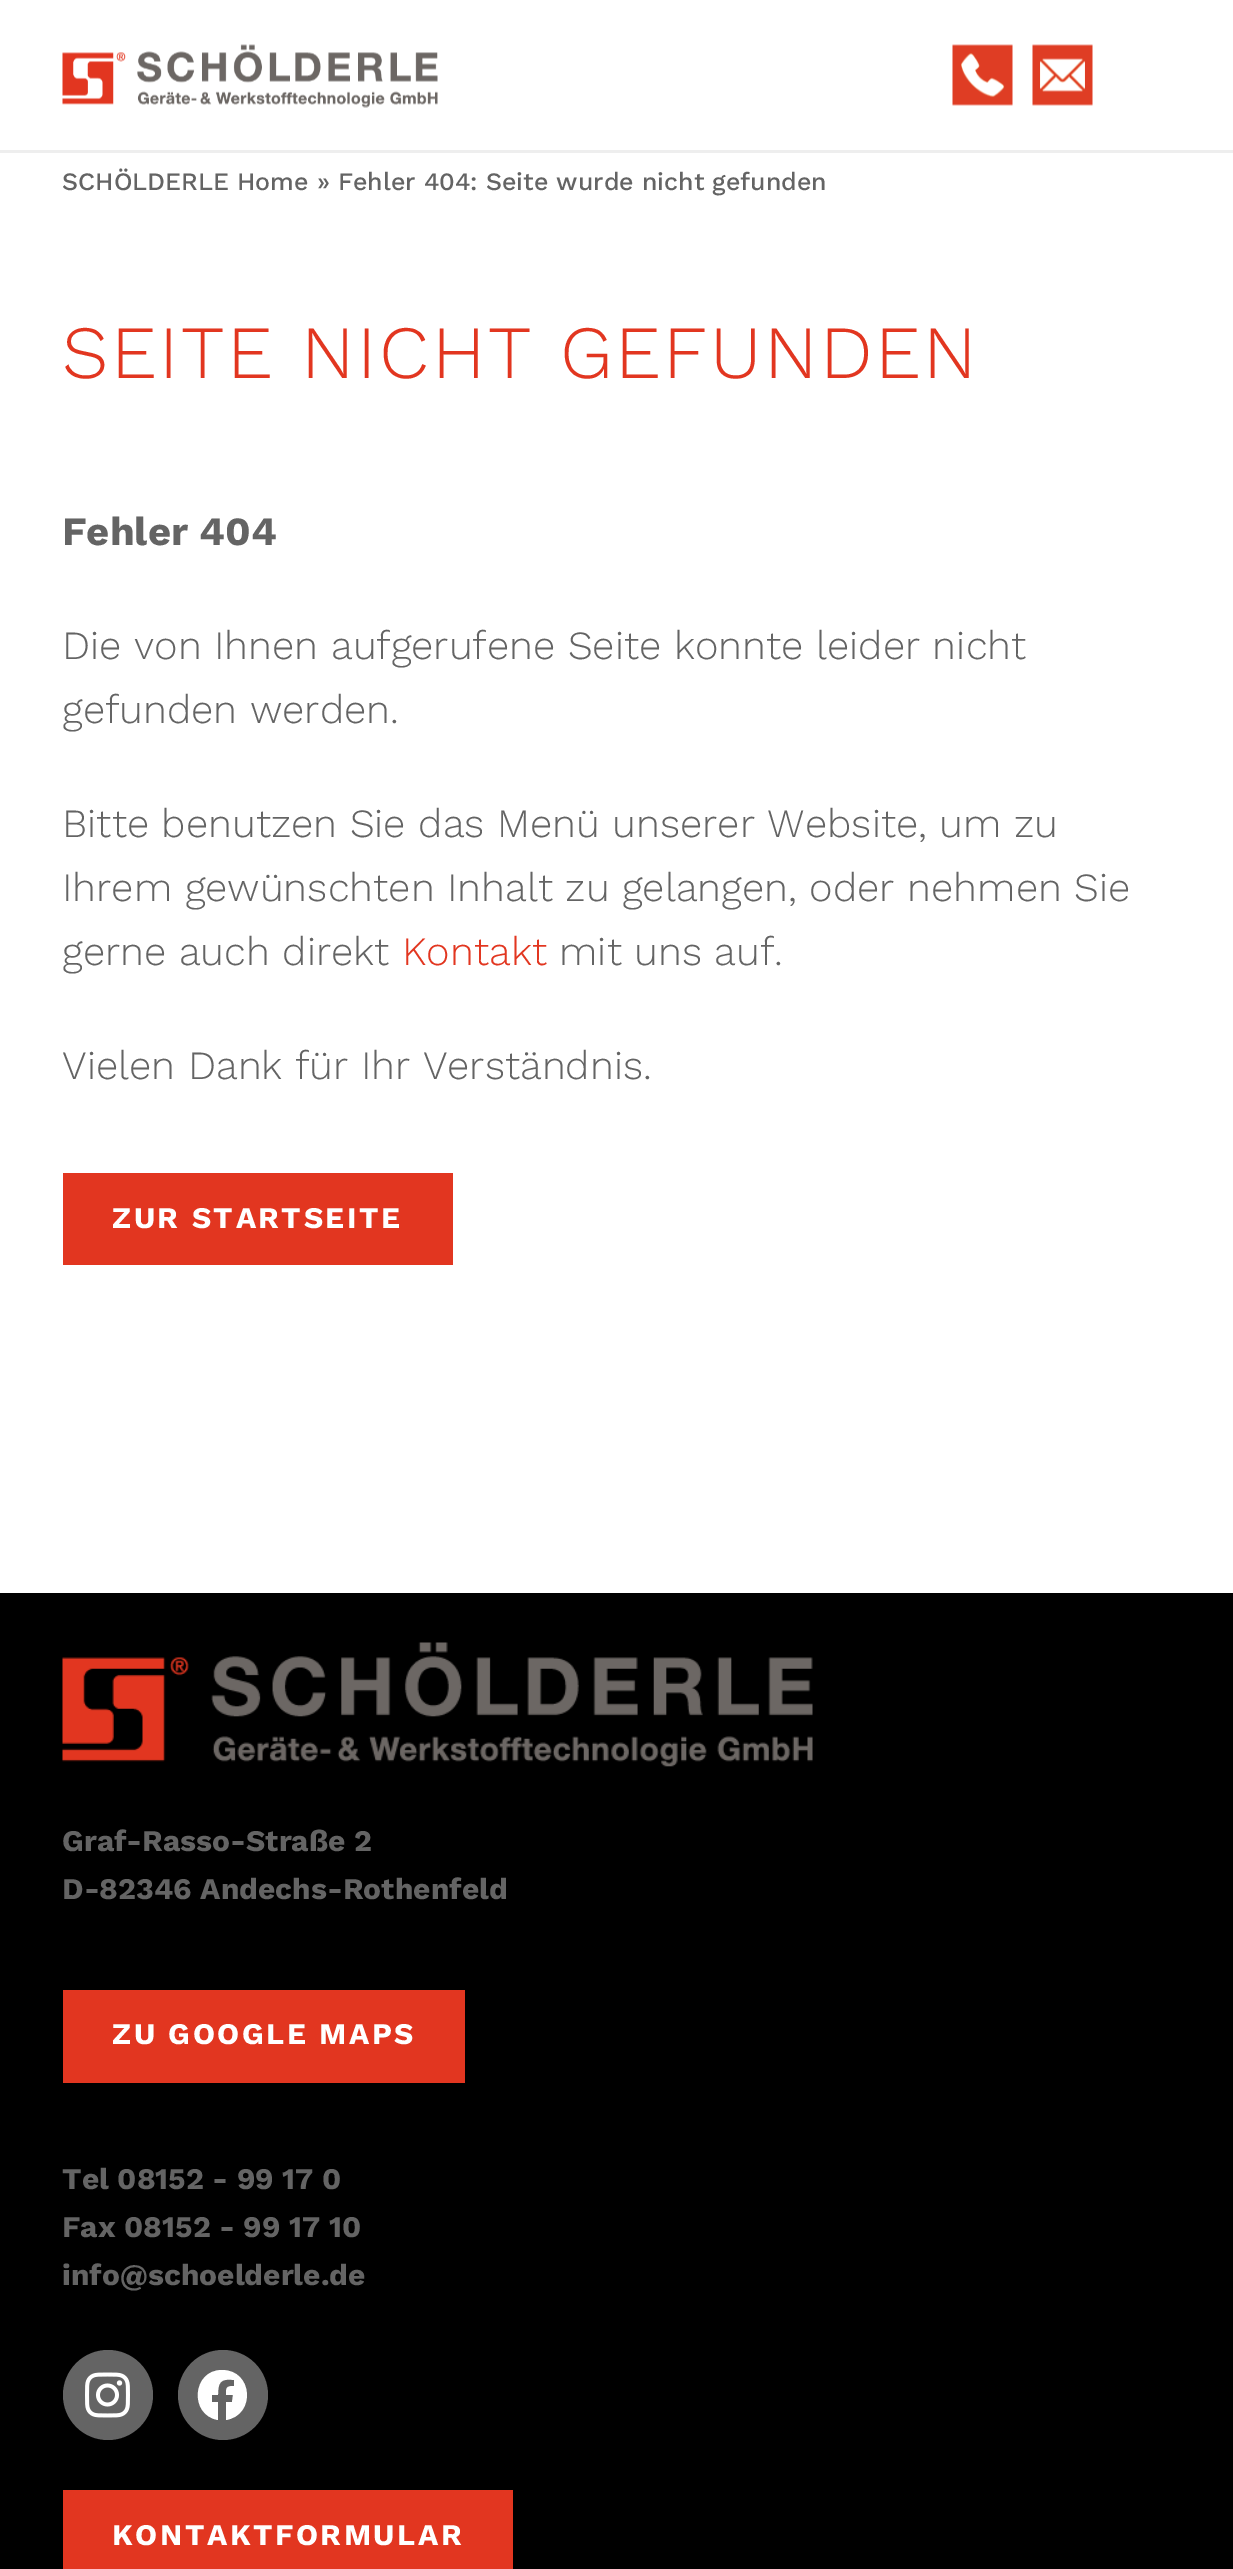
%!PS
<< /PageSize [1233 2569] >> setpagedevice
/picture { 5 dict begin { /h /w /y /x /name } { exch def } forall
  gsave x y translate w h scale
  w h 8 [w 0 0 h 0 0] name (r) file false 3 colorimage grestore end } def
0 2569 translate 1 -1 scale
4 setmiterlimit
1 setgray
0 0 1233 2569 rectfill
0.933 setgray
0 150 1233 3 rectfill
(img1.rgb) 62 44 376 64 picture
(img2.rgb) 952 44 61 62 picture
(img3.rgb) 1032 44 61 62 picture
/WorkSans-Medium [25 0 0 -25 0 0] selectfont
0.392 setgray
62 190 moveto (SCHÖLDERLE Home » Fehler 404: Seite wurde nicht gefunden) show
/WorkSans-Light [75 0 0 -75 0 0] selectfont
0.886 0.212 0.125 setrgbcolor
62 378 moveto 2.5 0 (SEITE NICHT GEFUNDEN) ashow
/WorkSans-Bold [40 0 0 -40 0 0] selectfont
0.392 setgray
62 545 moveto (Fehler 404) show
/WorkSans-Light [40 0 0 -40 0 0] selectfont
62 659 moveto (Die von Ihnen aufgerufene Seite konnte leider nicht) show
62 723 moveto (gefunden werden.) show
62 837 moveto (Bitte benutzen Sie das Menü unserer Website, um zu) show
62 901 moveto (Ihrem gewünschten Inhalt zu gelangen, oder nehmen Sie) show
62 965 moveto (gerne auch direkt) show
0.886 0.212 0.125 setrgbcolor
402 965 moveto (Kontakt) show
0.392 setgray
559 965 moveto (mit uns auf.) show
62 1079 moveto (Vielen Dank für Ihr Verständnis.) show
0.886 0.212 0.125 setrgbcolor
63 1173 390 92 rectfill
/WorkSans-Bold [30 0 0 -30 0 0] selectfont
1 setgray
112 1228 moveto 2.5 0 (ZUR STARTSEITE) ashow
0 setgray
0 1593 1233 976 rectfill
(img4.rgb) 62 1642 751 125 picture
0.392 setgray
62 1851 moveto (Graf-Rasso-Straße 2) show
62 1899 moveto (D-82346 Andechs-Rothenfeld) show
0.886 0.212 0.125 setrgbcolor
63 1990 402 93 rectfill
1 setgray
112 2044 moveto 2.5 0 (ZU GOOGLE MAPS) ashow
0.392 setgray
62 2189 moveto (Tel 08152 - 99 17 0) show
62 2237 moveto (Fax 08152 - 99 17 10) show
62 2285 moveto (info@schoelderle.de) show
newpath 108 2395 45 0 360 arc closepath fill
(img5.rgb) 85 2372 45 46 picture
newpath 223 2395 45 0 360 arc closepath fill
1 setgray
newpath 222 2370 moveto 192 2370 189 2415 218 2420 curveto 218 2402 lineto 212 2402 lineto 212 2395 lineto 218 2395 lineto 218 2383 220 2378 234 2380 curveto 234 2386 lineto 226 2386 226 2388 226 2395 curveto 233 2395 lineto 232 2402 lineto 226 2402 lineto 226 2420 lineto 256 2415 253 2370 222 2370 curveto closepath fill
0.886 0.212 0.125 setrgbcolor
63 2490 450 79 rectfill
1 setgray
112 2545 moveto 2.5 0 (KONTAKTFORMULAR) ashow
showpage
